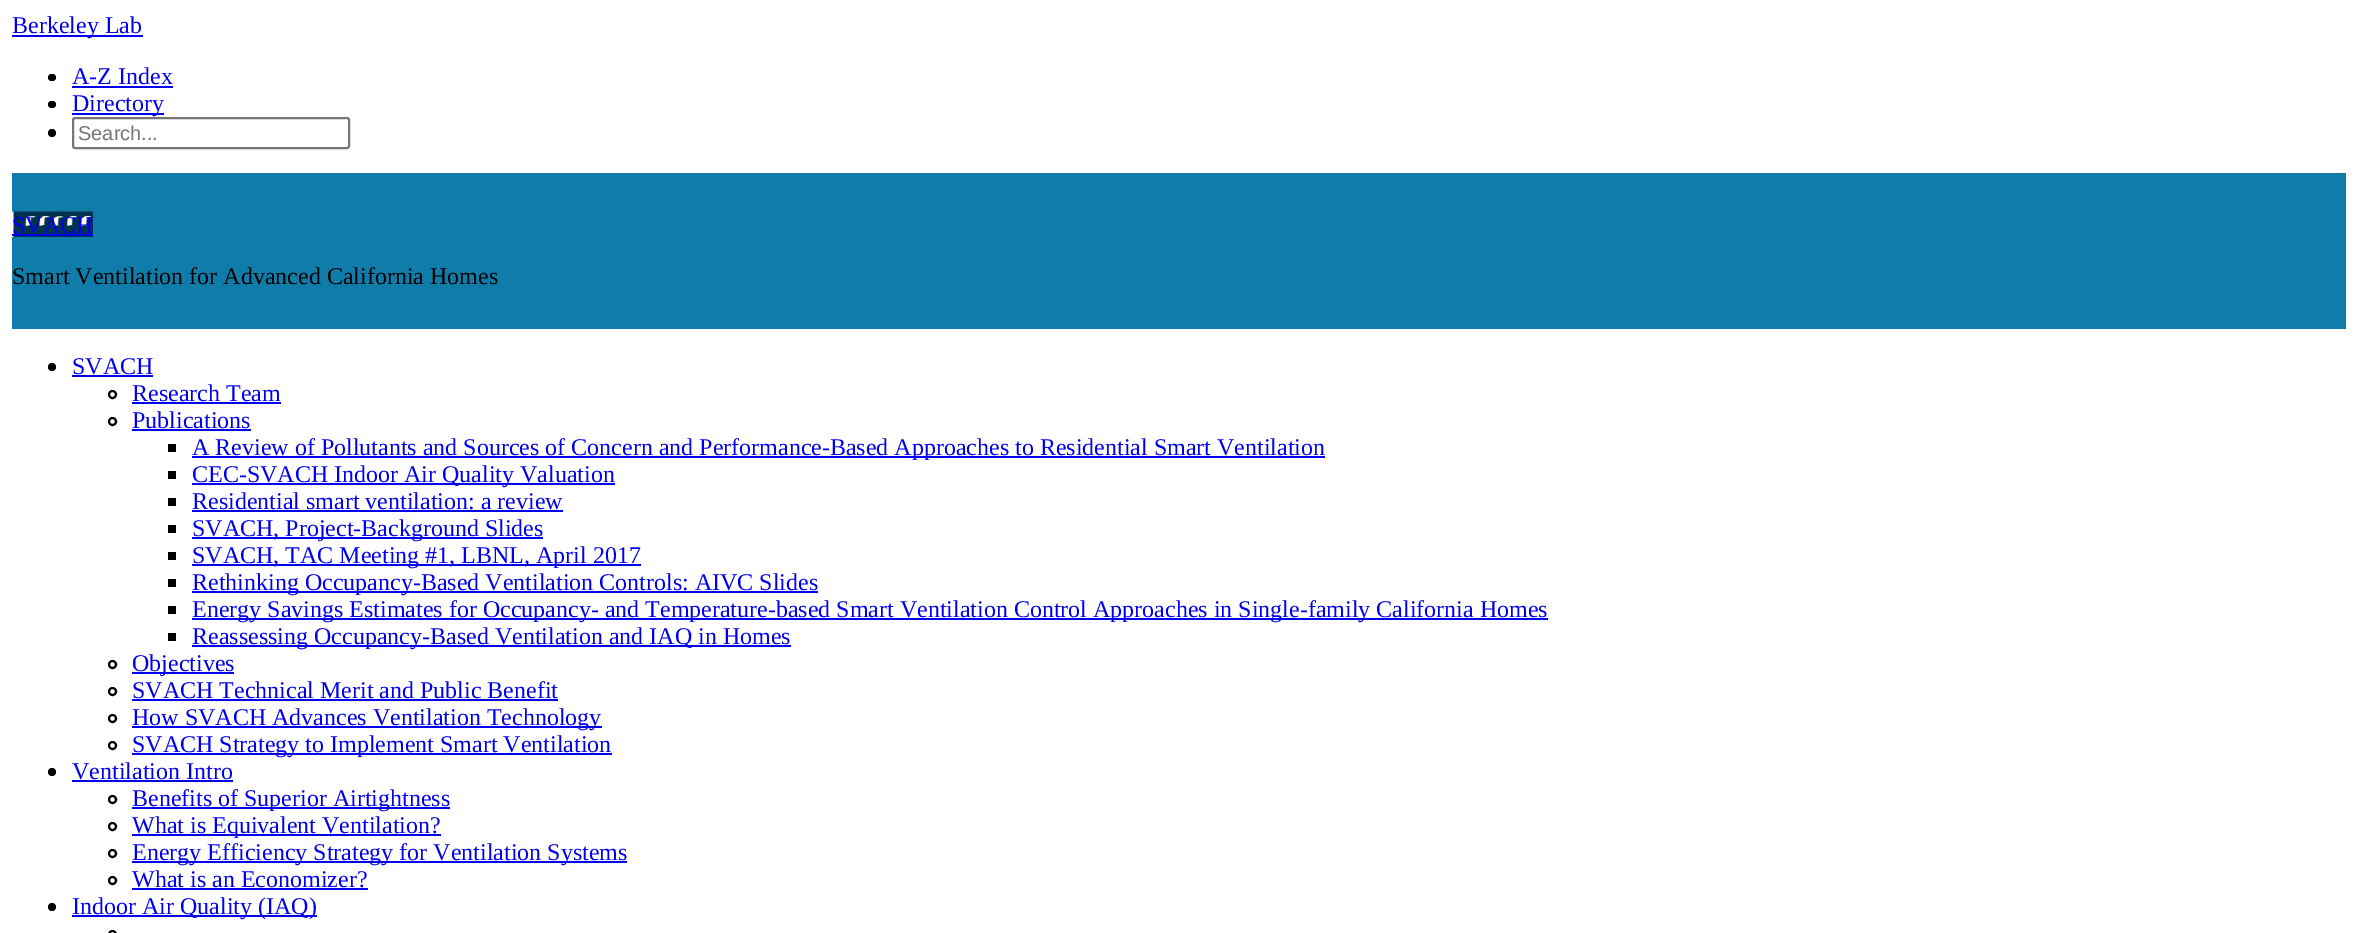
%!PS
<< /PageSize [2357 933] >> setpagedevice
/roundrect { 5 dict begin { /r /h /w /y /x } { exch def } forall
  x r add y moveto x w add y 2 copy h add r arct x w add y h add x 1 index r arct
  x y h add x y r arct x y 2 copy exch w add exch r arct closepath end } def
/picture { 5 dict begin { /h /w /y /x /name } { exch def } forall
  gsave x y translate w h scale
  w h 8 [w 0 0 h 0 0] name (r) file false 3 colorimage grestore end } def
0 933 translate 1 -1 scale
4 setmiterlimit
1 setgray
0 0 2357 933 rectfill
0 0 0.933 setrgbcolor
12 35 131 2 rectfill
/LiberationSerif-Regular [24 0 0 -24 0 0] selectfont
12 33 moveto (Berkeley Lab) show
0 setgray
48 74 8 7 3.5 roundrect fill
0 0 0.933 setrgbcolor
72 84 moveto (A-Z Index) show
72 86 101 2 rectfill
0 setgray
48 101 8 7 3.5 roundrect fill
0 0 0.933 setrgbcolor
72 113 92 2 rectfill
72 111 moveto (Directory) show
0 setgray
newpath 52 133 4 0 360 arc closepath fill
0.463 setgray
2 setlinewidth
73 118 276 30 2 roundrect stroke
/LiberationSans-Regular [20 0 0 -20 0 0] selectfont
0.459 setgray
78 140 moveto (Search...) show
0.059 0.486 0.663 setrgbcolor
12 173 2334 156 rectfill
(img1.rgb) 12 211 81 26 picture
/LiberationSerif-Regular [24 0 0 -24 0 0] selectfont
0 0 0.933 setrgbcolor
12 233 moveto (SVACH) show
12 234 81 2 rectfill
0 setgray
12 284 moveto (Smart Ventilation for Advanced California Homes) show
newpath 52 367 4 0 360 arc closepath fill
0 0 0.933 setrgbcolor
72 374 moveto (SVACH) show
72 375 81 2 rectfill
0 setgray
newpath 112.5 394.5 3.5 0 360 arc closepath stroke
0 0 0.933 setrgbcolor
132 401 moveto (Research Team) show
132 402 149 2 rectfill
0 setgray
newpath 112.5 421.5 3.5 0 360 arc closepath stroke
0 0 0.933 setrgbcolor
132 428 moveto (Publications) show
132 429 119 2 rectfill
0 setgray
168 444 8 8 rectfill
0 0 0.933 setrgbcolor
192 456 1133 2 rectfill
192 455 moveto (A Review of Pollutants and Sources of Concern and Performance-Based Approaches to Residential Smart Ventilation) show
0 setgray
168 471 8 8 rectfill
0 0 0.933 setrgbcolor
192 483 423 2 rectfill
192 482 moveto (CEC-SVACH Indoor Air Quality Valuation) show
0 setgray
168 498 8 8 rectfill
0 0 0.933 setrgbcolor
192 509 moveto (Residential smart ventilation: a review) show
192 510 371 2 rectfill
0 setgray
168 525 8 8 rectfill
0 0 0.933 setrgbcolor
192 537 351 2 rectfill
192 536 moveto (SVACH, Project-Background Slides) show
0 setgray
168 552 8 8 rectfill
0 0 0.933 setrgbcolor
192 564 449 2 rectfill
192 563 moveto (SVACH, TAC Meeting #1, LBNL, April 2017) show
0 setgray
168 579 8 8 rectfill
0 0 0.933 setrgbcolor
192 591 626 2 rectfill
192 590 moveto (Rethinking Occupancy-Based Ventilation Controls: AIVC Slides) show
0 setgray
168 606 8 8 rectfill
0 0 0.933 setrgbcolor
192 618 1356 2 rectfill
192 617 moveto (Energy Savings Estimates for Occupancy- and Temperature-based Smart Ventilation Control Approaches in Single-family California Homes) show
0 setgray
168 633 8 8 rectfill
0 0 0.933 setrgbcolor
192 645 599 2 rectfill
192 644 moveto (Reassessing Occupancy-Based Ventilation and IAQ in Homes) show
0 setgray
newpath 112.5 664.5 3.5 0 360 arc closepath stroke
0 0 0.933 setrgbcolor
132 672 102 2 rectfill
132 671 moveto (Objectives) show
0 setgray
newpath 112.5 691.5 3.5 0 360 arc closepath stroke
0 0 0.933 setrgbcolor
132 698 moveto (SVACH Technical Merit and Public Benefit) show
132 699 426 2 rectfill
0 setgray
newpath 112.5 718.5 3.5 0 360 arc closepath stroke
0 0 0.933 setrgbcolor
132 726 470 2 rectfill
132 725 moveto (How SVACH Advances Ventilation Technology) show
0 setgray
newpath 112.5 745.5 3.5 0 360 arc closepath stroke
0 0 0.933 setrgbcolor
132 753 480 2 rectfill
132 752 moveto (SVACH Strategy to Implement Smart Ventilation) show
0 setgray
newpath 52 772 4 0 360 arc closepath fill
0 0 0.933 setrgbcolor
72 779 moveto (Ventilation Intro) show
72 780 161 2 rectfill
0 setgray
newpath 112.5 799.5 3.5 0 360 arc closepath stroke
0 0 0.933 setrgbcolor
132 807 318 2 rectfill
132 806 moveto (Benefits of Superior Airtightness) show
0 setgray
newpath 112.5 826.5 3.5 0 360 arc closepath stroke
0 0 0.933 setrgbcolor
132 834 309 2 rectfill
132 833 moveto (What is Equivalent Ventilation?) show
0 setgray
newpath 112.5 853.5 3.5 0 360 arc closepath stroke
0 0 0.933 setrgbcolor
132 861 495 2 rectfill
132 860 moveto (Energy Efficiency Strategy for Ventilation Systems) show
0 setgray
newpath 112.5 880.5 3.5 0 360 arc closepath stroke
0 0 0.933 setrgbcolor
132 887 moveto (What is an Economizer?) show
132 888 236 2 rectfill
0 setgray
newpath 52 907 4 0 360 arc closepath fill
0 0 0.933 setrgbcolor
72 915 245 2 rectfill
72 914 moveto (Indoor Air Quality \(IAQ\)) show
0 setgray
newpath 112.5 934.5 3.5 0 360 arc closepath stroke
showpage
